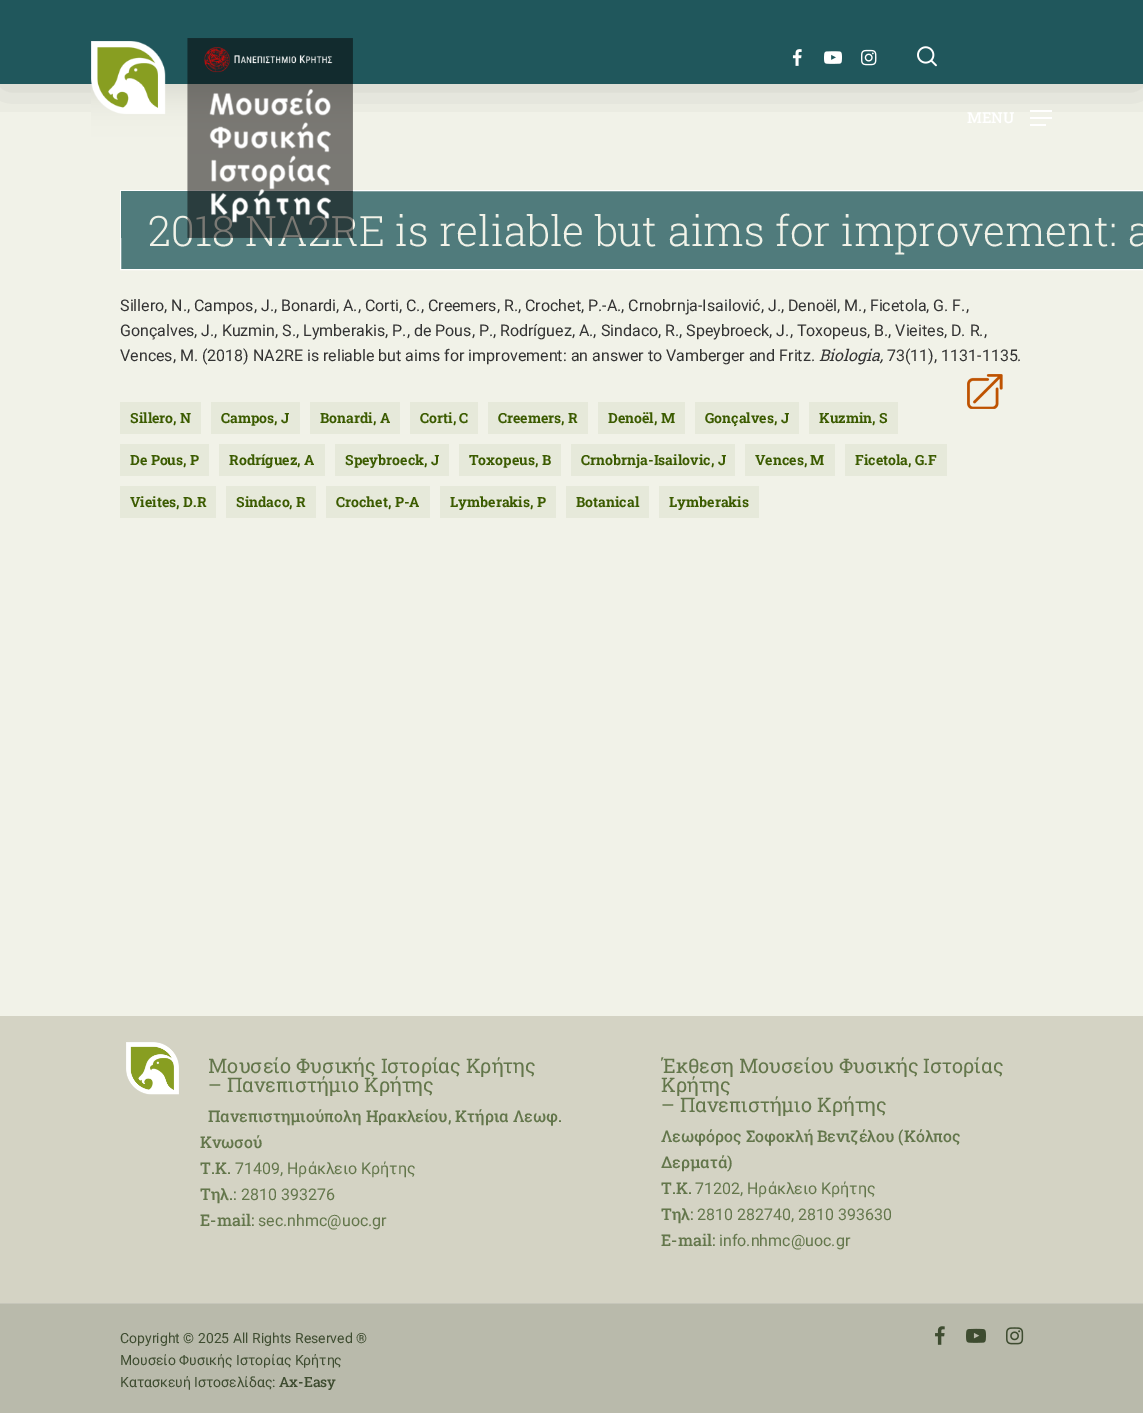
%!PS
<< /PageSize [1143 1413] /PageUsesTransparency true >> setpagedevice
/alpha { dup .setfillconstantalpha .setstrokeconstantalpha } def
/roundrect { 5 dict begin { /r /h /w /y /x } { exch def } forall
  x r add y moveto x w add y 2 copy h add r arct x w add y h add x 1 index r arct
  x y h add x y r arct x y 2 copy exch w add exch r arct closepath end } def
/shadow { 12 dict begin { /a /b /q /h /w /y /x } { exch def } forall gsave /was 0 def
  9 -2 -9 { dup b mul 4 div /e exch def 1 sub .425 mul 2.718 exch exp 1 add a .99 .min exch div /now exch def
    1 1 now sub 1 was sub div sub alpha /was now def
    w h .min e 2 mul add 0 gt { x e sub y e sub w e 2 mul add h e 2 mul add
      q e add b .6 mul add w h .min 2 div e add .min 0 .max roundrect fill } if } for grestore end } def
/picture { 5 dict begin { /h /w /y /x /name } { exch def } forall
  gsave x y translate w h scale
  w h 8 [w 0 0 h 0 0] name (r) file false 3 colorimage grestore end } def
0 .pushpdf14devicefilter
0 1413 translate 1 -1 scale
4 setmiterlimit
0.945 0.949 0.91 setrgbcolor
0 0 1143 1413 rectfill
0.902 0.914 0.855 setrgbcolor
659 486 100 32 rectfill
566 486 83 32 rectfill
440 486 116 32 rectfill
326 486 104 32 rectfill
226 486 90 32 rectfill
120 486 96 32 rectfill
845 444 102 32 rectfill
745 444 90 32 rectfill
571 444 164 32 rectfill
459 444 102 32 rectfill
335 444 114 32 rectfill
219 444 106 32 rectfill
120 444 89 32 rectfill
809 402 89 32 rectfill
695 402 104 32 rectfill
598 402 87 32 rectfill
488 402 100 32 rectfill
410 402 68 32 rectfill
310 402 90 32 rectfill
211 402 89 32 rectfill
120 402 81 32 rectfill
0.125 0.341 0.361 setrgbcolor
0 0 1143 84 rectfill
gsave
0 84 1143 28 rectclip
0 setgray
0 3 1143 84 0 22.5 0.15 shadow
grestore
0.314 0.482 0.486 setrgbcolor
newpath 120.5 190.5 moveto 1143.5 190.5 lineto 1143.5 269.5 lineto 120.5 269.5 lineto closepath gsave fill grestore
1 setgray
stroke
/RobotoSlab-Light [42 0 0 -42 0 0] selectfont
0.945 0.949 0.91 setrgbcolor
148 246 moveto (2018 NA2RE is reliable but aims for improvement: a) show
(img1.rgb) 91 38 262 200 picture
(img2.rgb) 792 49 10 17 picture
(img3.rgb) 824 51 18 13 picture
(img4.rgb) 861 49 16 17 picture
(img5.rgb) 917 46 20 21 picture
/RobotoSlab-Medium [15 0 0 -15 0 0] selectfont
1 setgray
967 123 moveto (MENU) show
1030 110 22 2 rectfill
1030 124 16 2 rectfill
1030 117 22 2 rectfill
/Roboto-Regular [16 0 0 -16 0 0] selectfont
0.2 setgray
120 311 moveto (Sillero, N., Campos, J., Bonardi, A., Corti, C., Creemers, R., Crochet, P.-A., Crnobrnja-Isailović, J., Denoël, M., Ficetola, G. F.,) show
120 336 moveto (Gonçalves, J., Kuzmin, S., Lymberakis, P., de Pous, P., Rodríguez, A., Sindaco, R., Speybroeck, J., Toxopeus, B., Vieites, D. R.,) show
120 361 moveto (Vences, M. \(2018\) NA2RE is reliable but aims for improvement: an answer to Vamberger and Fritz.) show
/RobotoSlab-Italic [16 0 0 -16 0 0] selectfont
819 361 moveto (Biologia,) show
/Roboto-Regular [16 0 0 -16 0 0] selectfont
887 361 moveto (73\(11\), 1131-1135.) show
(img6.rgb) 967 374 36 35 picture
/RobotoSlab-Bold [14 0 0 -14 0 0] selectfont
0.231 0.357 0 setrgbcolor
130 423 moveto (Sillero, N) show
221 423 moveto (Campos, J) show
320 423 moveto (Bonardi, A) show
420 423 moveto (Corti, C) show
498 423 moveto (Creemers, R) show
608 423 moveto (Denoël, M) show
705 423 moveto (Gonçalves, J) show
819 423 moveto (Kuzmin, S) show
130 465 moveto (De Pous, P) show
229 465 moveto (Rodríguez, A) show
345 465 moveto (Speybroeck, J) show
469 465 moveto (Toxopeus, B) show
581 465 moveto (Crnobrnja-Isailovic, J) show
755 465 moveto (Vences, M) show
855 465 moveto (Ficetola, G.F) show
130 507 moveto (Vieites, D.R) show
236 507 moveto (Sindaco, R) show
336 507 moveto (Crochet, P-A) show
450 507 moveto (Lymberakis, P) show
576 507 moveto (Botanical) show
669 507 moveto (Lymberakis) show
0.831 0.827 0.769 setrgbcolor
0 1016 1143 287 rectfill
(img7.rgb) 126 1042 53 53 picture
/RobotoSlab-Regular [20 0 0 -20 0 0] selectfont
0.388 0.463 0.294 setrgbcolor
208 1073 moveto (Μουσείο Φυσικής Ιστορίας Κρήτης) show
208 1092 moveto (– Πανεπιστήμιο Κρήτης) show
/RobotoSlab-Medium [16 0 0 -16 0 0] selectfont
208 1122 moveto (Πανεπιστημιούπολη Ηρακλείου, Κτήρια Λεωφ.) show
200 1148 moveto (Κνωσού) show
200 1174 moveto (Τ.Κ.) show
/Roboto-Regular [16 0 0 -16 0 0] selectfont
235 1174 moveto (71409, Ηράκλειο Κρήτης) show
/RobotoSlab-Medium [16 0 0 -16 0 0] selectfont
200 1200 moveto (Τηλ.:) show
/Roboto-Regular [16 0 0 -16 0 0] selectfont
241 1200 moveto (2810 393276) show
/RobotoSlab-Medium [16 0 0 -16 0 0] selectfont
200 1226 moveto (E-mail:) show
/Roboto-Regular [16 0 0 -16 0 0] selectfont
258 1226 moveto (sec.nhmc@uoc.gr) show
/RobotoSlab-Regular [20 0 0 -20 0 0] selectfont
661 1073 moveto (Έκθεση Μουσείου Φυσικής Ιστορίας) show
661 1092 moveto (Κρήτης) show
661 1112 moveto (– Πανεπιστήμιο Κρήτης) show
/RobotoSlab-Medium [16 0 0 -16 0 0] selectfont
661 1142 moveto (Λεωφόρος Σοφοκλή Βενιζέλου \(Κόλπος) show
661 1168 moveto (Δερματά\)) show
661 1194 moveto (Τ.Κ.) show
/Roboto-Regular [16 0 0 -16 0 0] selectfont
695 1194 moveto (71202, Ηράκλειο Κρήτης) show
/RobotoSlab-Medium [16 0 0 -16 0 0] selectfont
661 1220 moveto (Τηλ:) show
/Roboto-Regular [16 0 0 -16 0 0] selectfont
697 1220 moveto (2810 282740, 2810 393630) show
/RobotoSlab-Medium [16 0 0 -16 0 0] selectfont
661 1246 moveto (E-mail:) show
/Roboto-Regular [16 0 0 -16 0 0] selectfont
719 1246 moveto (info.nhmc@uoc.gr) show
0.725 0.729 0.671 setrgbcolor
0 1304 1143 109 rectfill
0.776 0.776 0.729 setrgbcolor
0 1303 1143 1 rectfill
/Roboto-Regular [14 0 0 -14 0 0] selectfont
0.243 0.298 0.188 setrgbcolor
120 1343 moveto (Copyright © 2025 All Rights Reserved ®) show
120 1365 moveto (Μουσείο Φυσικής Ιστορίας Κρήτης) show
120 1387 moveto (Κατασκευή Ιστοσελίδας:) show
/RobotoSlab-Medium [14 0 0 -14 0 0] selectfont
279 1387 moveto (Ax-Easy) show
(img8.rgb) 935 1326 10 19 picture
(img9.rgb) 966 1328 20 15 picture
(img10.rgb) 1006 1327 18 18 picture
.poppdf14devicefilter showpage
